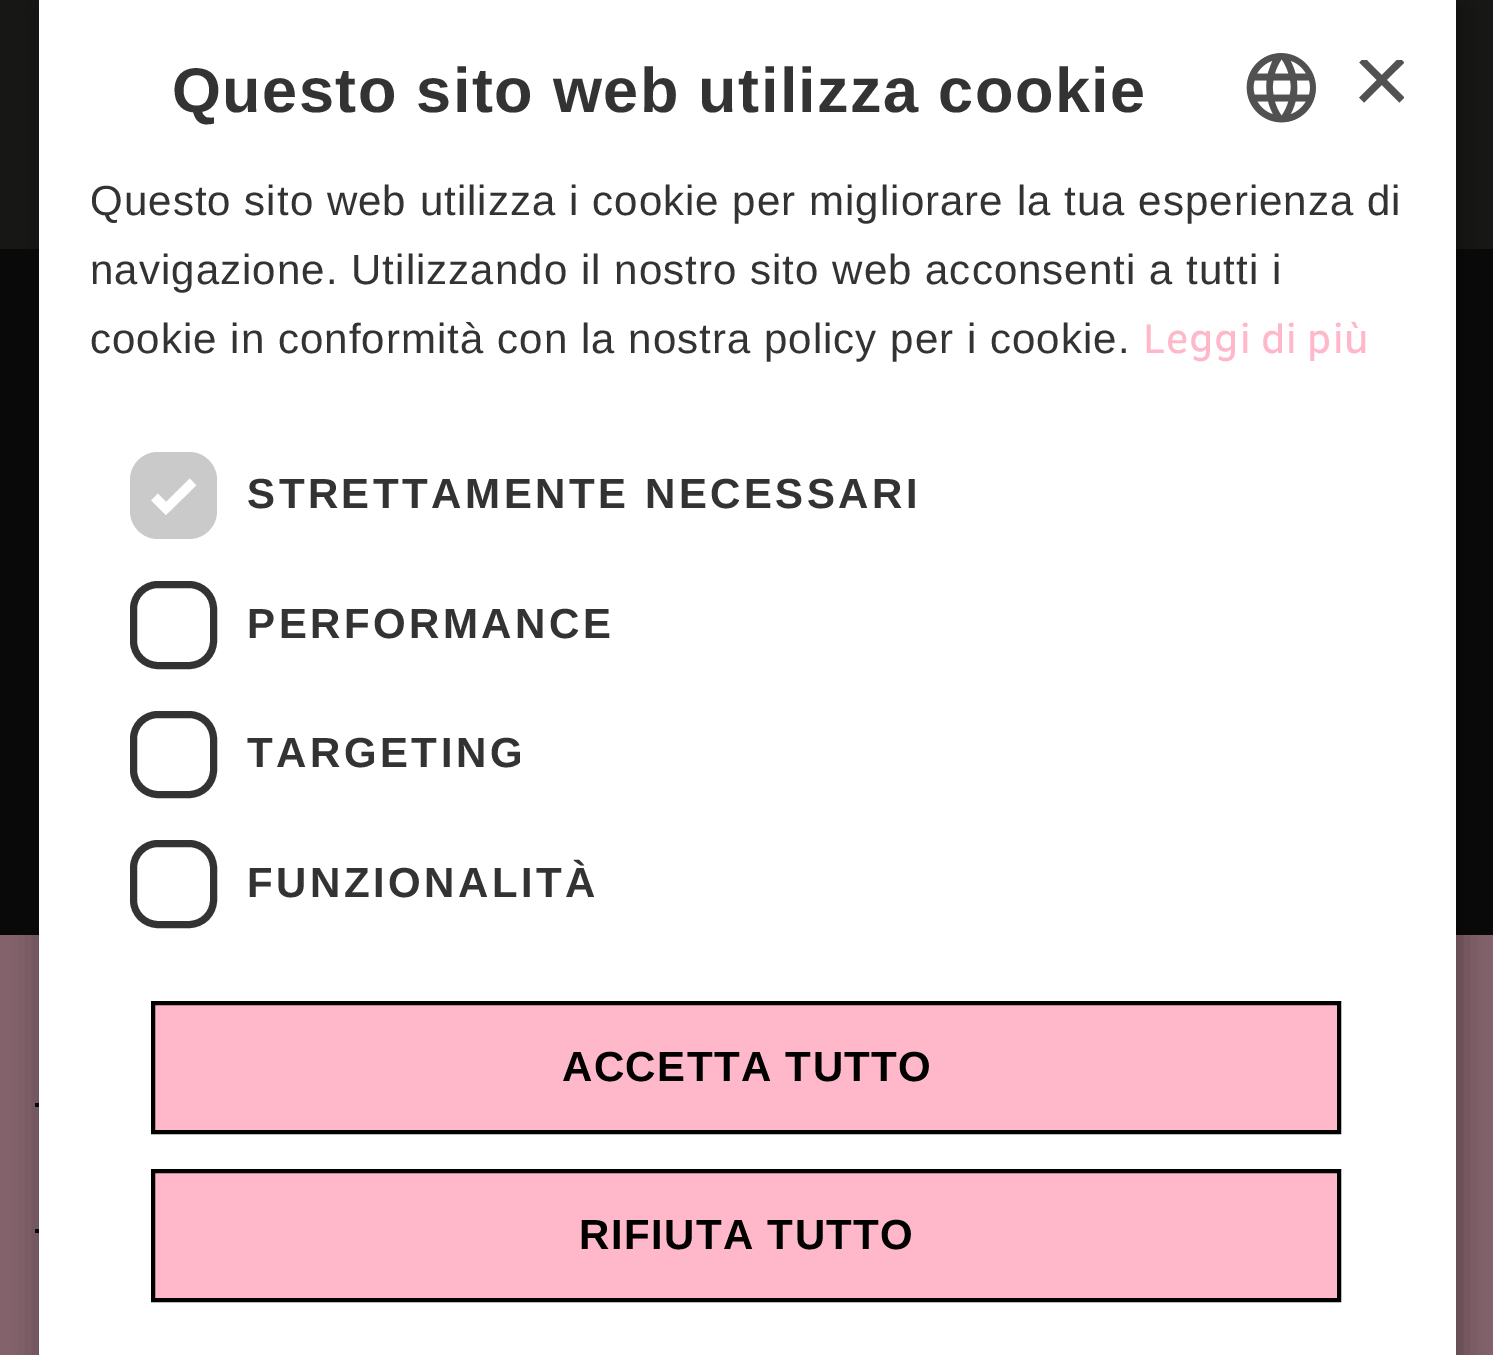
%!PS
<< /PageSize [1493 1355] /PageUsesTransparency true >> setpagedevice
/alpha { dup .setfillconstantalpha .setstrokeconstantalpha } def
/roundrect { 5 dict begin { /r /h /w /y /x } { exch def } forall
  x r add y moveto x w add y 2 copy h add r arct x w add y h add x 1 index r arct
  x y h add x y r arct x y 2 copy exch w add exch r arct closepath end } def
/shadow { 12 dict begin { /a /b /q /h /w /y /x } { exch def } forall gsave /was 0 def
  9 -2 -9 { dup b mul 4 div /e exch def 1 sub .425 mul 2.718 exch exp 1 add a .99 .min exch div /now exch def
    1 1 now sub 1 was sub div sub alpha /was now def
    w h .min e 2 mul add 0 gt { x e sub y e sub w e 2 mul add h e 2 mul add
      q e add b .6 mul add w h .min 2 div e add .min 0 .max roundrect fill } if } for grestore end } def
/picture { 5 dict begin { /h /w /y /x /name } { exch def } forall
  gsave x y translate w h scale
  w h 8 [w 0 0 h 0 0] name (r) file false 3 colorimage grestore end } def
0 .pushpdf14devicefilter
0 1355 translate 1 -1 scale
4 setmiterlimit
0.035 setgray
0 0 1493 1355 rectfill
0.09 0.094 0.086 setrgbcolor
0 0 1493 249 rectfill
0.514 0.384 0.42 setrgbcolor
0 935 1493 420 rectfill
0.035 setgray
35 1103 4 4 rectfill
35 1229 4 4 rectfill
0 setgray
42 7 1418 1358 0 14 0.35 shadow
1 setgray
39 0 1417 1355 rectfill
/LiberationSans-Bold [63 0 0 -63 0 0] selectfont
0.2 setgray
172 112 moveto 1.4 0 (Questo sito web utilizza cookie) ashow
(img1.rgb) 1246 53 70 70 picture
gsave
1351 60 53 52 rectclip
/LiberationSans-Regular [102 0 0 -102 0 0] selectfont
0.322 setgray
1352 114 moveto (×) show
grestore
/LiberationSans-Regular [42 0 0 -42 0 0] selectfont
90 215 moveto 1.05 0 (Questo sito web utilizza i cookie per migliorare la tua esperienza di) ashow
90 284 moveto 1.05 0 (navigazione. Utilizzando il nostro sito web acconsenti a tutti i) ashow
90 353 moveto 1.05 0 (cookie in conformità con la nostra policy per i cookie.) ashow
/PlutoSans-Regular [42 0 0 -42 0 0] selectfont
1 0.722 0.792 setrgbcolor
1143 353 moveto 1.05 0 (Leggi di più) ashow
0.792 setgray
130 452 87 87 28 roundrect fill
1 setgray
9.2 setlinewidth
newpath 154.5 497 moveto 166 508.5 lineto 193 482 lineto stroke
/LiberationSans-Bold [42 0 0 -42 0 0] selectfont
0.2 setgray
247 508 moveto 3.5 0 (STRETTAMENTE NECESSARI) ashow
7 setlinewidth
133.5 584.5 80 81 24.5 roundrect stroke
247 638 moveto 3.5 0 (PERFORMANCE) ashow
133.5 714.5 80 80 24.5 roundrect stroke
247 767 moveto 3.5 0 (TARGETING) ashow
133.5 843.5 80 81 24.5 roundrect stroke
247 897 moveto 3.5 0 (FUNZIONALITÀ) ashow
1 0.722 0.792 setrgbcolor
newpath 153 1003 moveto 1339 1003 lineto 1339 1132 lineto 153 1132 lineto closepath gsave fill grestore
0 setgray
4 setlinewidth
stroke
562 1081 moveto 1.4 0 (ACCETTA TUTTO) ashow
1 0.722 0.792 setrgbcolor
newpath 153 1171 moveto 1339 1171 lineto 1339 1300 lineto 153 1300 lineto closepath gsave fill grestore
0 setgray
stroke
579 1249 moveto 1.4 0 (RIFIUTA TUTTO) ashow
.poppdf14devicefilter showpage
